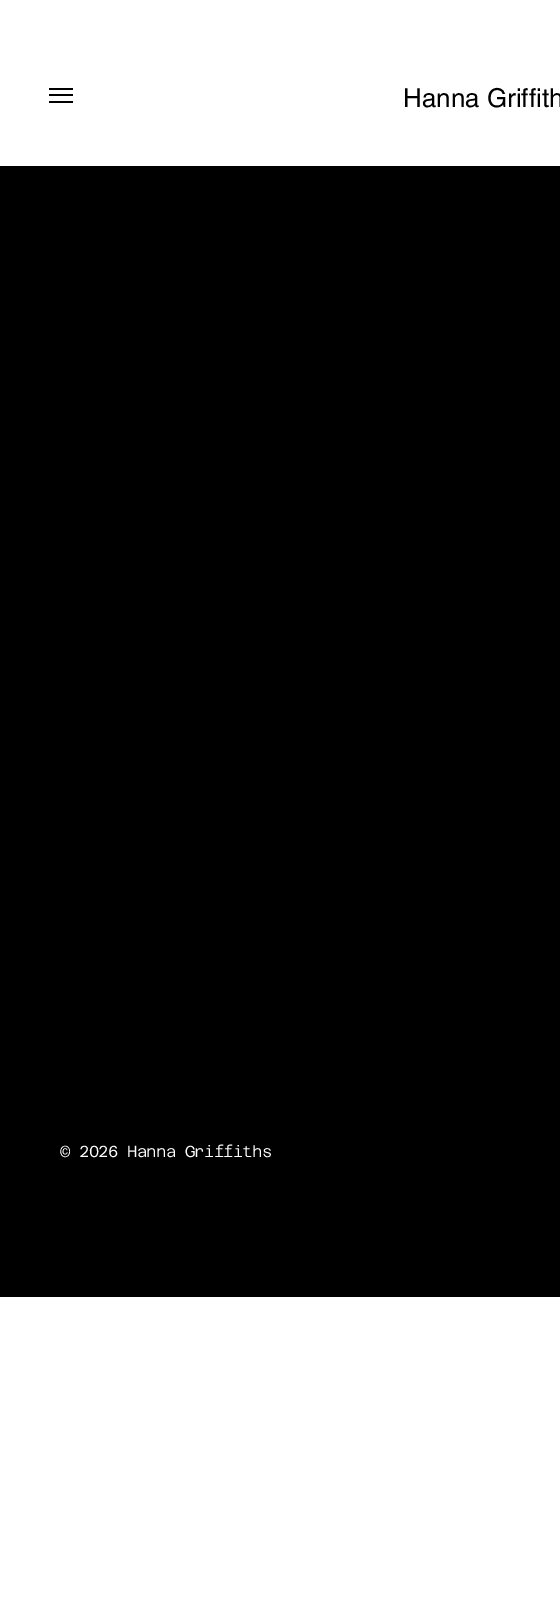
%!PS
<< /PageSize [560 1602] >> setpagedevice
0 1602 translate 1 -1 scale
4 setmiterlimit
1 setgray
0 0 560 1602 rectfill
0 setgray
49 101 24 2 rectfill
49 88 24 2 rectfill
49 94 24 2 rectfill
/helvetica-Regular [26 0 0 -26 0 0] selectfont
403 107 moveto (Hanna Griffith) show
0 166 560 1131 rectfill
/AzeretMono-Light [16 0 0 -16 0 0] selectfont
1 setgray
60 1157 moveto -0.8 0 (© 2026 Hanna Griffiths) ashow
showpage
